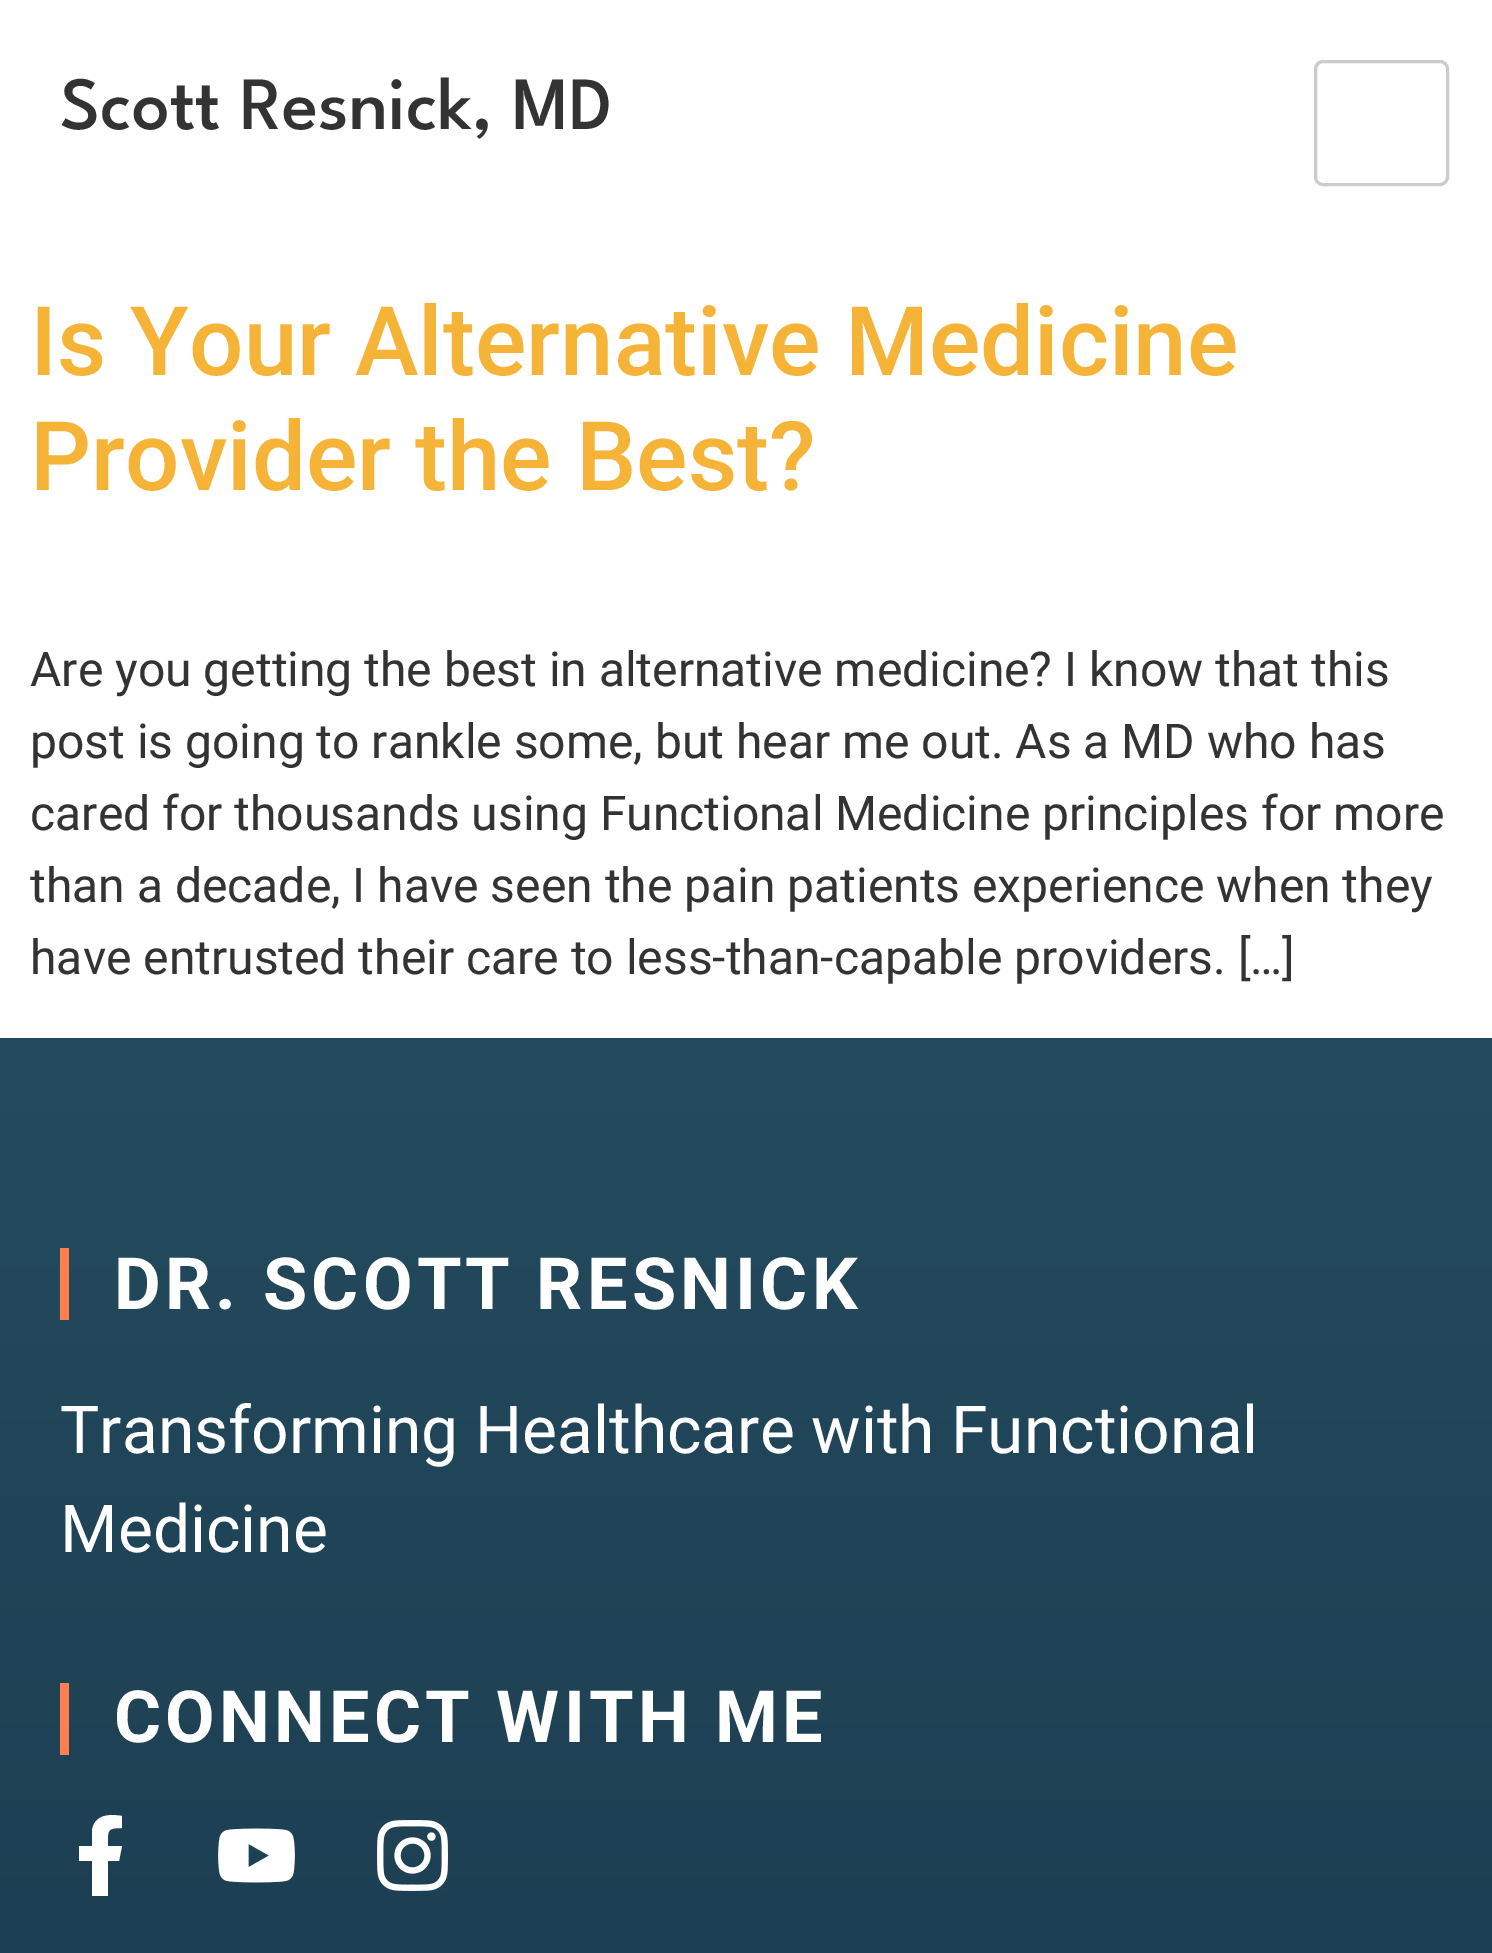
%!PS
<< /PageSize [1492 1953] >> setpagedevice
/roundrect { 5 dict begin { /r /h /w /y /x } { exch def } forall
  x r add y moveto x w add y 2 copy h add r arct x w add y h add x 1 index r arct
  x y h add x y r arct x y 2 copy exch w add exch r arct closepath end } def
/picture { 5 dict begin { /h /w /y /x /name } { exch def } forall
  gsave x y translate w h scale
  w h 8 [w 0 0 h 0 0] name (r) file false 3 colorimage grestore end } def
0 1953 translate 1 -1 scale
4 setmiterlimit
1 setgray
0 0 1492 1953 rectfill
/LeagueSpartan-Medium [75 0 0 -75 0 0] selectfont
0.2 setgray
60 129 moveto (Scott Resnick, MD) show
0.8 setgray
3 setlinewidth
1315.5 61.5 132 123 7.5 roundrect stroke
/Roboto-Medium [96 0 0 -96 0 0] selectfont
0.961 0.702 0.216 setrgbcolor
30 375 moveto (Is Your Alternative Medicine) show
30 490 moveto (Provider the Best?) show
/Roboto-Regular [48 0 0 -48 0 0] selectfont
0.2 setgray
30 686 moveto (Are you getting the best in alternative medicine? I know that this) show
30 758 moveto (post is going to rankle some, but hear me out. As a MD who has) show
30 830 moveto (cared for thousands using Functional Medicine principles for more) show
30 902 moveto (than a decade, I have seen the pain patients experience when they) show
30 974 moveto (have entrusted their care to less-than-capable providers. […]) show
gsave newpath 0 1038 moveto 1492 1038 lineto 1492 1953 lineto 0 1953 lineto closepath clip newpath
<< /ShadingType 2 /ColorSpace /DeviceRGB /Coords [747 1038 747 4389] /Extend [true true] /Function << /FunctionType 2 /Domain [0 1] /C0 [0.141 0.294 0.369] /C1 [0.043 0.125 0.208] /N 1 >> >> shfill grestore
1 0.498 0.314 setrgbcolor
60 1248 9 72 rectfill
/Roboto-Bold [72 0 0 -72 0 0] selectfont
1 setgray
114 1309 moveto 4.25 0 (DR. SCOTT RESNICK) ashow
/Roboto-Regular [66 0 0 -66 0 0] selectfont
60 1453 moveto (Transforming Healthcare with Functional) show
60 1552 moveto (Medicine) show
1 0.498 0.314 setrgbcolor
60 1683 9 72 rectfill
/Roboto-Bold [72 0 0 -72 0 0] selectfont
1 setgray
114 1742 moveto 4.25 0 (CONNECT WITH ME) ashow
newpath 119 1861 moveto 122 1846 lineto 108 1846 lineto 108 1831 106 1828 122 1828 curveto 122 1816 lineto 110 1814 95 1814 92 1830 curveto 92 1846 lineto 79 1846 lineto 79 1861 lineto 92 1861 lineto 92 1896 lineto 108 1896 lineto 108 1861 lineto closepath fill
(img1.rgb) 218 1828 77 55 picture
(img2.rgb) 377 1820 71 71 picture
showpage
